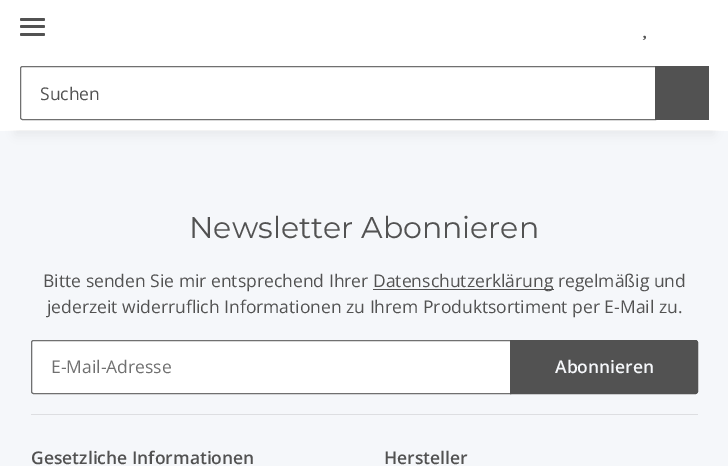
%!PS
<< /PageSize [728 466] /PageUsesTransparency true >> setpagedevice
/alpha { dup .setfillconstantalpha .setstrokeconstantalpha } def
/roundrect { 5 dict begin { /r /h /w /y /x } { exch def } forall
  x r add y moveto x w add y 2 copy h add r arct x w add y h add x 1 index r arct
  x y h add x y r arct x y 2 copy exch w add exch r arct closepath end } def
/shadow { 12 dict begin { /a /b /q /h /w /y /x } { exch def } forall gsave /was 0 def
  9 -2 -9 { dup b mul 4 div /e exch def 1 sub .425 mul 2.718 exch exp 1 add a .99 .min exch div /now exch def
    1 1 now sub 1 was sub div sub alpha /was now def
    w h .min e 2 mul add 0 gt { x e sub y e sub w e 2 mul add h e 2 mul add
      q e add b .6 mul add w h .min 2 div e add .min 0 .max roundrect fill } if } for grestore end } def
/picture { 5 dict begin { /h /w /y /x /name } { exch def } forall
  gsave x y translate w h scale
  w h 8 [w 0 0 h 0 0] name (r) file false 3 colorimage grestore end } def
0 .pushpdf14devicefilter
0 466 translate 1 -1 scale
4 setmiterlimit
0.961 0.969 0.98 setrgbcolor
0 0 728 466 rectfill
1 setgray
0 130 728 1 rectfill
0 setgray
15 35 699 100 0 5.5 0.06 shadow
1 setgray
0 0 728 130 rectfill
0.322 setgray
20 25 25 3 1.5 roundrect fill
20 18 25 3 1.5 roundrect fill
20 33 25 3 1.5 roundrect fill
(img1.rgb) 642 35 4 5 picture
0.439 setgray
newpath 22.5 66.5 moveto 655.5 66.5 lineto 655.5 119.5 lineto 22.5 119.5 lineto 21.5 119.5 20.5 118.5 20.5 117.5 curveto 20.5 68.5 lineto 20.5 67.5 21.5 66.5 22.5 66.5 curveto closepath stroke
/OpenSans-Regular [17.5 0 0 -17.5 0 0] selectfont
0.322 setgray
40 100 moveto (Suchen) show
655 66 54 54 rectfill
/Montserrat-Regular [30 0 0 -30 0 0] selectfont
189 238 moveto (Newsletter Abonnieren) show
/OpenSans-Regular [17.5 0 0 -17.5 0 0] selectfont
43 287 moveto (Bitte senden Sie mir entsprechend Ihrer) show
373 289 181 1 rectfill
373 287 moveto (Datenschutzerklärung regelmäßig und) show
47 313 moveto (jederzeit widerruflich Informationen zu Ihrem Produktsortiment per E-Mail zu.) show
1 setgray
newpath 34 341 moveto 510 341 lineto 510 393 lineto 34 393 lineto 33.5 393 33 392.5 33 392 curveto 33 342 lineto 33 341.5 33.5 341 34 341 curveto closepath fill
0.439 setgray
newpath 33.5 340.5 moveto 510.5 340.5 lineto 510.5 393.5 lineto 33.5 393.5 lineto 32.5 393.5 31.5 392.5 31.5 391.5 curveto 31.5 342.5 lineto 31.5 341.5 32.5 340.5 33.5 340.5 curveto closepath stroke
51 373 moveto (E-Mail-Adresse) show
0.322 setgray
newpath 510.5 340.5 moveto 695.5 340.5 lineto 696.5 340.5 697.5 341.5 697.5 342.5 curveto 697.5 391.5 lineto 697.5 392.5 696.5 393.5 695.5 393.5 curveto 510.5 393.5 lineto closepath gsave fill grestore
stroke
/OpenSans-SemiBold [17.5 0 0 -17.5 0 0] selectfont
0.961 0.969 0.98 setrgbcolor
555 373 moveto (Abonnieren) show
0.867 0.871 0.882 setrgbcolor
31 414 667 1 rectfill
0.322 setgray
31 464 moveto (Gesetzliche Informationen) show
384 464 moveto (Hersteller) show
.poppdf14devicefilter showpage
